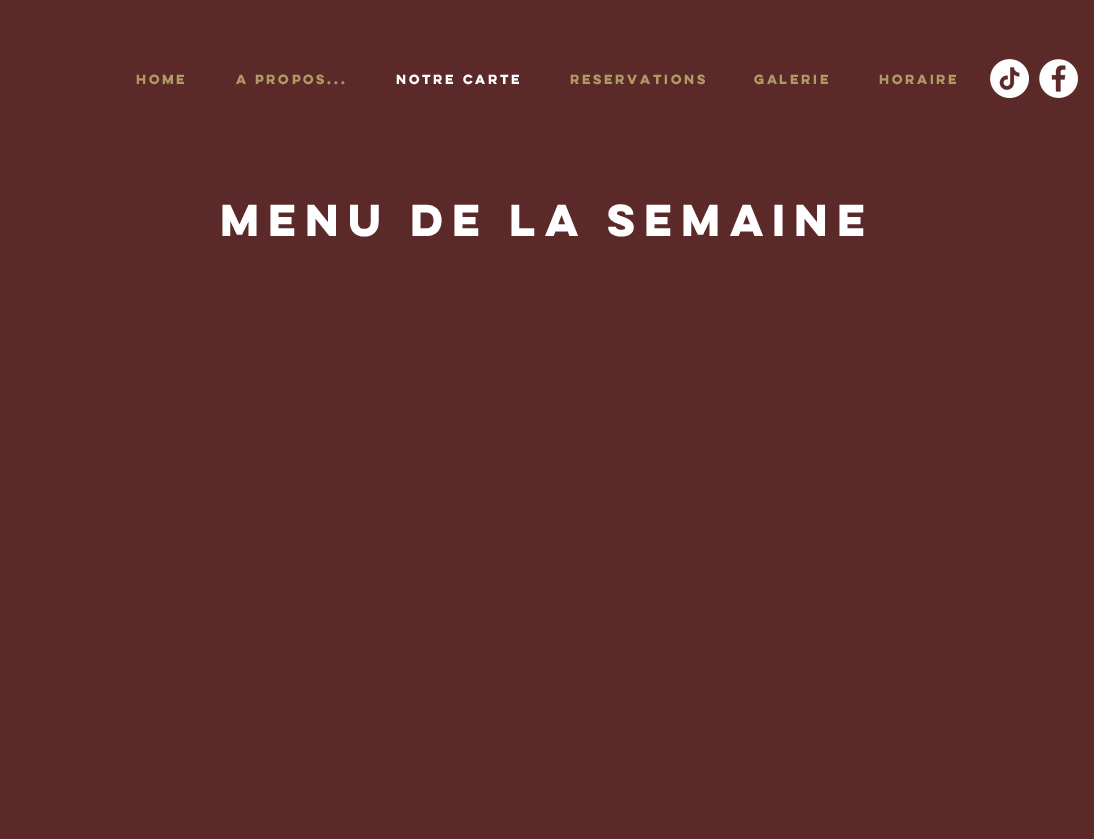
%!PS
<< /PageSize [1094 839] >> setpagedevice
/picture { 5 dict begin { /h /w /y /x /name } { exch def } forall
  gsave x y translate w h scale
  w h 8 [w 0 0 h 0 0] name (r) file false 3 colorimage grestore end } def
0 839 translate 1 -1 scale
4 setmiterlimit
0.361 0.161 0.161 setrgbcolor
0 0 1094 839 rectfill
/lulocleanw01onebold-Bold [12 0 0 -12 0 0] selectfont
0.682 0.604 0.392 setrgbcolor
136 84 moveto (HOME) show
236 84 moveto (A PROPOS...) show
1 setgray
396 84 moveto (NOTRE CARTE) show
0.682 0.604 0.392 setrgbcolor
570 84 moveto (RESERVATIONS) show
754 84 moveto (GALERIE) show
879 84 moveto (HORAIRE) show
(img1.rgb) 990 59 39 39 picture
(img2.rgb) 1039 59 39 39 picture
/lulocleanw01onebold-Bold [40 0 0 -40 0 0] selectfont
1 setgray
220 236 moveto (MENU DE LA SEMAINE) show
showpage
